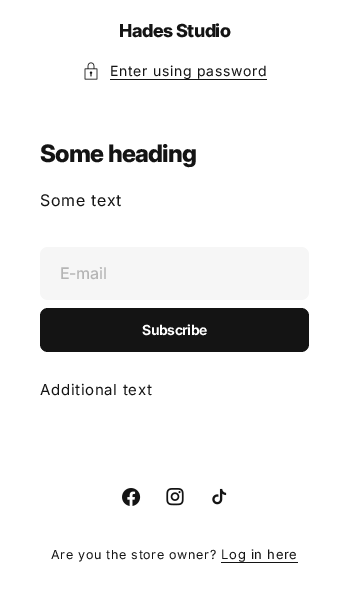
%!PS
<< /PageSize [349 607] >> setpagedevice
/roundrect { 5 dict begin { /r /h /w /y /x } { exch def } forall
  x r add y moveto x w add y 2 copy h add r arct x w add y h add x 1 index r arct
  x y h add x y r arct x y 2 copy exch w add exch r arct closepath end } def
/picture { 5 dict begin { /h /w /y /x /name } { exch def } forall
  gsave x y translate w h scale
  w h 8 [w 0 0 h 0 0] name (r) file false 3 colorimage grestore end } def
0 607 translate 1 -1 scale
4 setmiterlimit
1 setgray
0 0 349 607 rectfill
/Inter-ExtraBold [18 0 0 -18 0 0] selectfont
0.078 setgray
119 37 moveto -0.5 0 (Hades Studio) ashow
(img1.rgb) 84 62 14 18 picture
/Inter-Regular [14 0 0 -14 0 0] selectfont
110 76 moveto 0.7 0 (Enter using password) ashow
110 79 157 1 rectfill
/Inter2-ExtraBold [24 0 0 -24 0 0] selectfont
40 162 moveto -0.75 0 (Some heading) ashow
/Inter2-Regular [16 0 0 -16 0 0] selectfont
40 206 moveto 0.7 0 (Some text) ashow
0.965 setgray
40 247 269 53 8 roundrect fill
/Inter-Medium [16 0 0 -16 0 0] selectfont
0.71 setgray
60 279 moveto -0.25 0 (E-mail) ashow
0.078 setgray
40 308 269 44 8 roundrect fill
/Inter-Bold [14 0 0 -14 0 0] selectfont
1 setgray
142 335 moveto -0.5 0 (Subscribe) ashow
/Inter-Regular [15 0 0 -15 0 0] selectfont
0.078 setgray
40 395 moveto 0.7 0 (Additional text) ashow
(img2.rgb) 122 488 19 18 picture
(img3.rgb) 166 488 18 18 picture
(img4.rgb) 212 488 15 17 picture
/Inter-Regular [12.5 0 0 -12.5 0 0] selectfont
51 559 moveto 0.7 0 (Are you the store owner?) ashow
/Inter-Regular [13 0 0 -13 0 0] selectfont
221 559 moveto 0.7 0 (Log in here) ashow
221 562 77 1 rectfill
showpage
